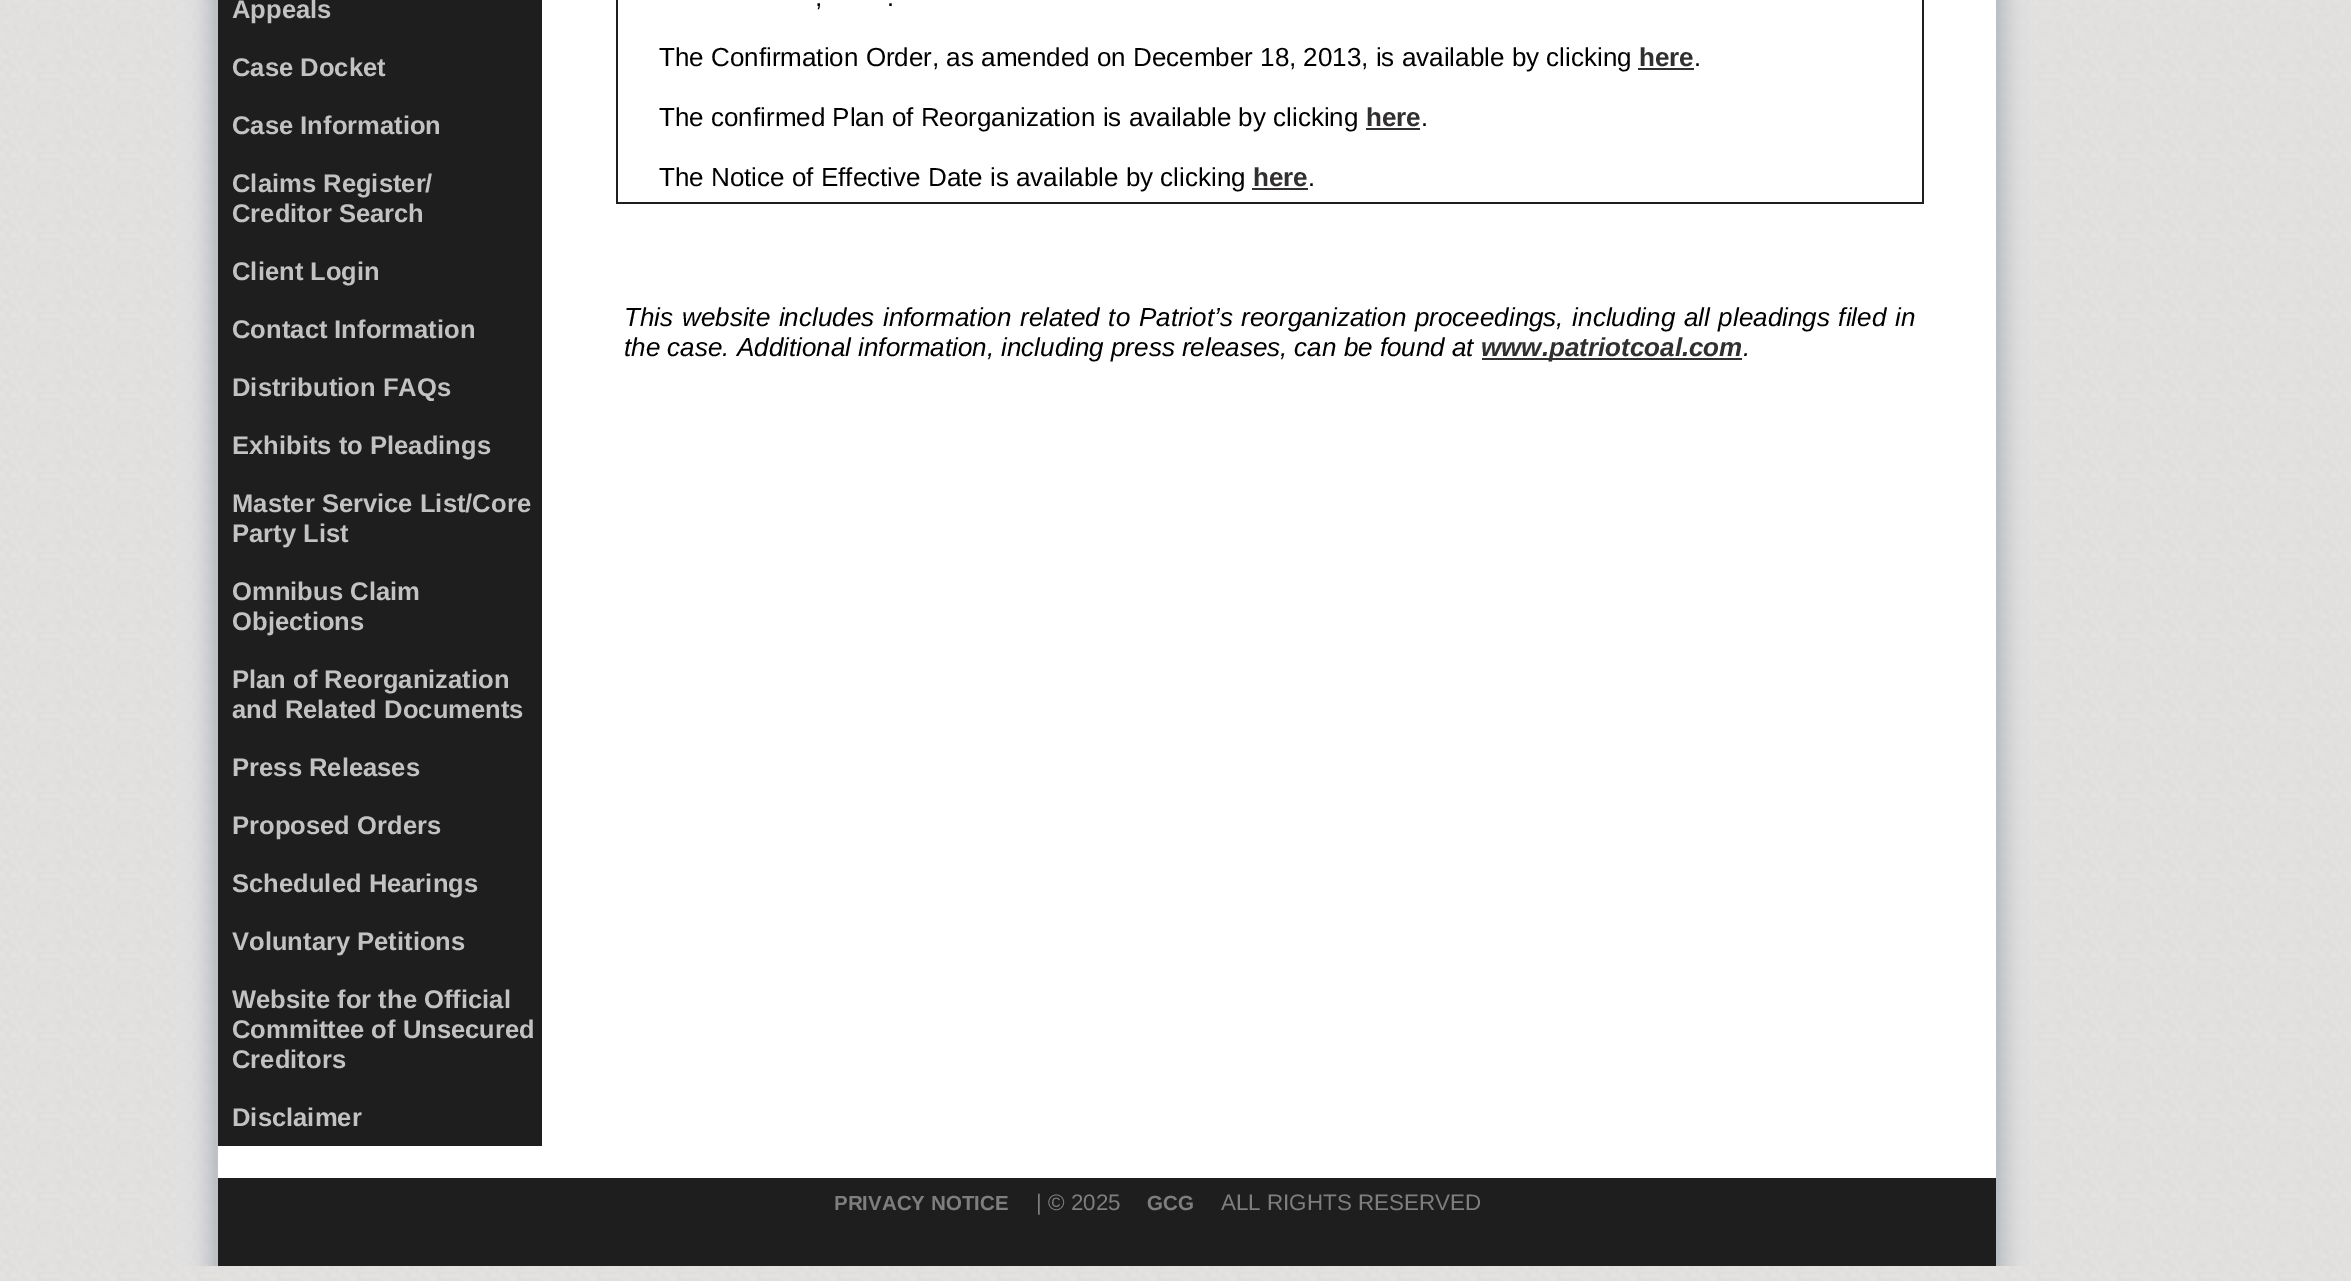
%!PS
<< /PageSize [2351 1281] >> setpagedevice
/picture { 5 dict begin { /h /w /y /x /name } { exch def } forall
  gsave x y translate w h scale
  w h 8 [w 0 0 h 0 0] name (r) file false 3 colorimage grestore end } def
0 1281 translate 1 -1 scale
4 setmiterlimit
1 setgray
0 0 2351 1281 rectfill
(img1.rgb) 0 0 2351 1281 picture
218 0 1778 1178 rectfill
(img2.rgb) 176 0 42 1266 picture
0.118 setgray
218 0 324 1146 rectfill
/LiberationSans-Bold [25.6 0 0 -25.6 0 0] selectfont
0.761 setgray
232 18 moveto (Appeals) show
232 76 moveto (Case Docket) show
232 134 moveto (Case Information) show
232 192 moveto (Claims Register/) show
232 222 moveto (Creditor Search) show
232 280 moveto (Client Login) show
232 338 moveto (Contact Information) show
232 396 moveto (Distribution FAQs) show
232 454 moveto (Exhibits to Pleadings) show
232 512 moveto (Master Service List/Core) show
232 542 moveto (Party List) show
232 600 moveto (Omnibus Claim) show
232 630 moveto (Objections) show
232 688 moveto (Plan of Reorganization) show
232 718 moveto (and Related Documents) show
232 776 moveto (Press Releases) show
232 834 moveto (Proposed Orders) show
232 892 moveto (Scheduled Hearings) show
232 950 moveto (Voluntary Petitions) show
232 1008 moveto (Website for the Official) show
232 1038 moveto (Committee of Unsecured) show
232 1068 moveto (Creditors) show
232 1126 moveto (Disclaimer) show
0.118 setgray
1922 0 2 204 rectfill
616 202 1308 2 rectfill
616 0 2 204 rectfill
/LiberationSans-Regular [26 0 0 -26 0 0] selectfont
0 setgray
815 6 moveto (,) show
887 6 moveto (.) show
659 66 moveto (The Confirmation Order, as amended on December 18, 2013, is available by clicking) show
/LiberationSans-Bold [26 0 0 -26 0 0] selectfont
0.196 0.184 0.192 setrgbcolor
1639 66 moveto (here) show
1638 68 56 2 rectfill
/LiberationSans-Regular [26 0 0 -26 0 0] selectfont
0 setgray
1694 66 moveto (.) show
659 126 moveto (The confirmed Plan of Reorganization is available by clicking) show
/LiberationSans-Bold [26 0 0 -26 0 0] selectfont
0.196 0.184 0.192 setrgbcolor
1366 126 moveto (here) show
1366 128 54 2 rectfill
/LiberationSans-Regular [26 0 0 -26 0 0] selectfont
0 setgray
1421 126 moveto (.) show
659 186 moveto (The Notice of Effective Date is available by clicking) show
/LiberationSans-Bold [26 0 0 -26 0 0] selectfont
0.196 0.184 0.192 setrgbcolor
1253 186 moveto (here) show
1252 188 56 2 rectfill
/LiberationSans-Regular [26 0 0 -26 0 0] selectfont
0 setgray
1308 186 moveto (.) show
/LiberationSans-Italic [26 0 0 -26 0 0] selectfont
624 326 moveto 1.5 0 32 (This website includes information related to Patriot’s reorganization proceedings, including all pleadings filed in) widthshow
624 356 moveto (the case. Additional information, including press releases, can be found at) show
0.196 0.184 0.192 setrgbcolor
1482 358 260 2 rectfill
/LiberationSans-BoldItalic [26 0 0 -26 0 0] selectfont
1481 356 moveto (www.patriotcoal.com) show
/LiberationSans-Italic [26 0 0 -26 0 0] selectfont
0 setgray
1743 356 moveto (.) show
0.118 setgray
218 1178 1778 88 rectfill
/LiberationSans-Bold [20.5 0 0 -20.5 0 0] selectfont
0.494 setgray
834 1210 moveto (PRIVACY NOTICE) show
/LiberationSans-Regular [22.4 0 0 -22.4 0 0] selectfont
1036 1210 moveto (| © 2025) show
/LiberationSans-Bold [20.5 0 0 -20.5 0 0] selectfont
1147 1210 moveto (GCG) show
/LiberationSans-Regular [22.4 0 0 -22.4 0 0] selectfont
1221 1210 moveto (ALL RIGHTS RESERVED) show
(img3.rgb) 1996 0 42 1266 picture
showpage
